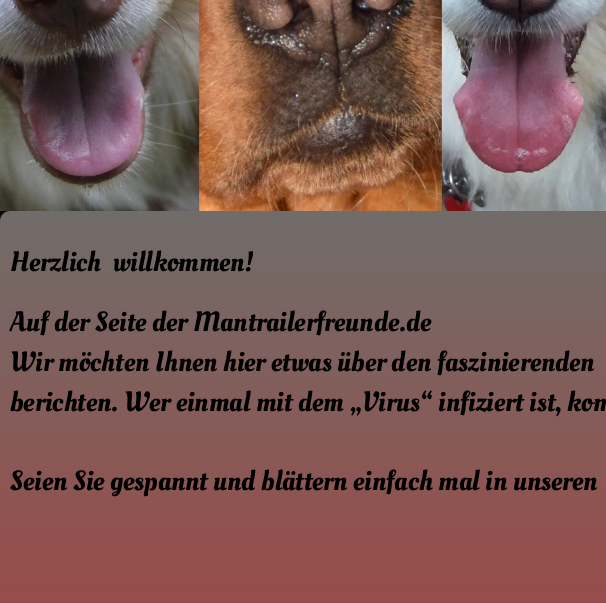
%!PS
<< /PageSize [606 603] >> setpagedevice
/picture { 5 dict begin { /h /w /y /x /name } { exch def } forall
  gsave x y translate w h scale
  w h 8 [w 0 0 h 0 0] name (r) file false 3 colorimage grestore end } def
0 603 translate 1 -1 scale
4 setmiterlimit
1 setgray
0 0 606 603 rectfill
(img1.rgb) 0 211 606 392 picture
(img2.rgb) 0 0 606 211 picture
/OleoScript-Regular [28 0 0 -28 0 0] selectfont
0 setgray
10 271 moveto (Herzlich  willkommen!) show
10 331 moveto (Auf der Seite der Mantrailerfreunde.de) show
10 371 moveto (Wir möchten Ihnen hier etwas über den faszinierenden) show
10 411 moveto (berichten. Wer einmal mit dem „Virus“ infiziert ist, kom) show
10 490 moveto (Seien Sie gespannt und blättern einfach mal in unseren) show
showpage
